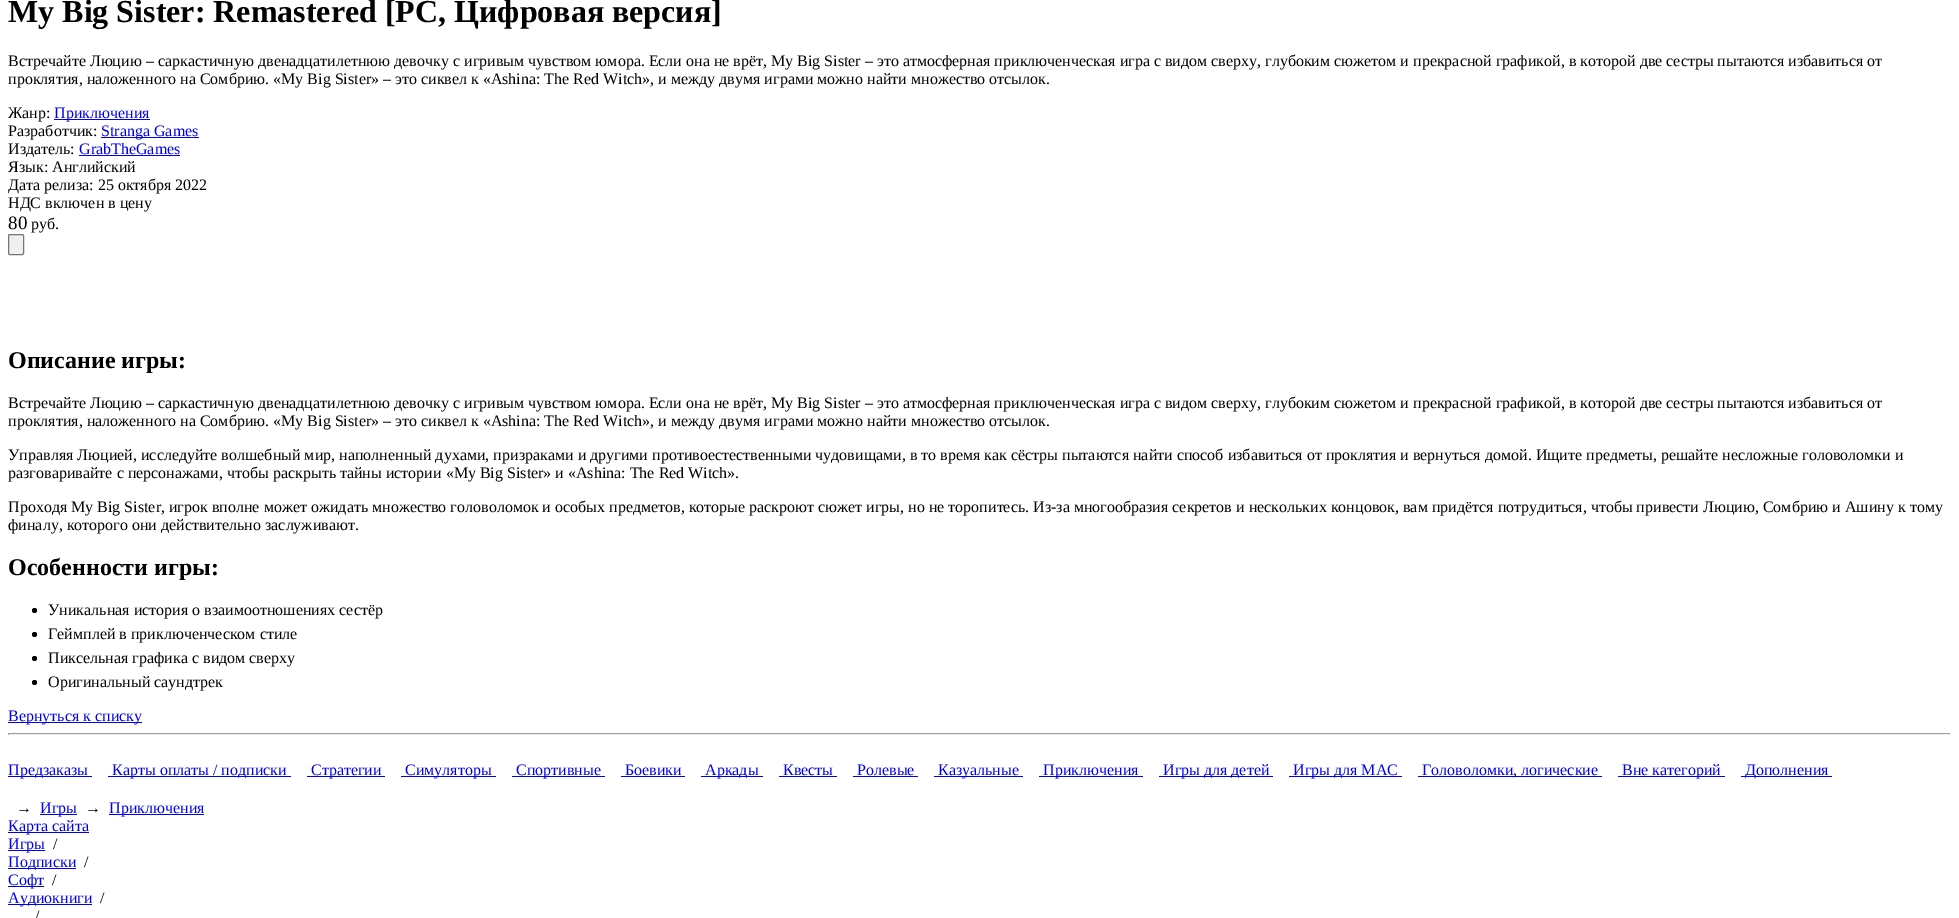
%!PS
<< /PageSize [1959 918] >> setpagedevice
/roundrect { 5 dict begin { /r /h /w /y /x } { exch def } forall
  x r add y moveto x w add y 2 copy h add r arct x w add y h add x 1 index r arct
  x y h add x y r arct x y 2 copy exch w add exch r arct closepath end } def
0 918 translate 1 -1 scale
4 setmiterlimit
1 setgray
0 0 1959 918 rectfill
/LiberationSerif-Bold [32 0 0 -32 0 0] selectfont
0 setgray
8 22 moveto (My Big Sister: Remastered [PC, Цифровая версия]) show
/LiberationSerif-Regular [16 0 0 -16 0 0] selectfont
8 66 moveto (Встречайте Люцию – саркастичную двенадцатилетнюю девочку с игривым чувством юмора. Если она не врёт, My Big Sister – это атмосферная приключенческая игра с видом сверху, глубоким сюжетом и прекрасной графикой, в которой две сестры пытаются избавиться от) show
8 84 moveto (проклятия, наложенного на Сомбрию. «My Big Sister» – это сиквел к «Ashina: The Red Witch», и между двумя играми можно найти множество отсылок.) show
8 118 moveto (Жанр:) show
0 0 0.933 setrgbcolor
54 119 96 1 rectfill
54 118 moveto (Приключения) show
0 setgray
8 136 moveto (Разработчик:) show
0 0 0.933 setrgbcolor
101 137 98 1 rectfill
101 136 moveto (Stranga Games) show
0 setgray
8 154 moveto (Издатель:) show
0 0 0.933 setrgbcolor
79 154 moveto (GrabTheGames) show
79 155 101 1 rectfill
0 setgray
8 172 moveto (Язык: Английский) show
8 190 moveto (Дата релиза: 25 октября 2022) show
8 208 moveto (НДС включен в цену) show
/LiberationSerif-Regular [19 0 0 -19 0 0] selectfont
8 229 moveto (80) show
/LiberationSerif-Regular [16 0 0 -16 0 0] selectfont
31 229 moveto (руб.) show
0.937 setgray
8.5 234.5 15 20 1.5 roundrect gsave fill grestore
0.463 setgray
stroke
/LiberationSerif-Bold [24 0 0 -24 0 0] selectfont
0 setgray
8 368 moveto (Описание игры:) show
/LiberationSerif-Regular [16 0 0 -16 0 0] selectfont
8 408 moveto (Встречайте Люцию – саркастичную двенадцатилетнюю девочку с игривым чувством юмора. Если она не врёт, My Big Sister – это атмосферная приключенческая игра с видом сверху, глубоким сюжетом и прекрасной графикой, в которой две сестры пытаются избавиться от) show
8 426 moveto (проклятия, наложенного на Сомбрию. «My Big Sister» – это сиквел к «Ashina: The Red Witch», и между двумя играми можно найти множество отсылок.) show
8 460 moveto (Управляя Люцией, исследуйте волшебный мир, наполненный духами, призраками и другими противоестественными чудовищами, в то время как сёстры пытаются найти способ избавиться от проклятия и вернуться домой. Ищите предметы, решайте несложные головоломки и) show
8 478 moveto (разговаривайте с персонажами, чтобы раскрыть тайны истории «My Big Sister» и «Ashina: The Red Witch».) show
8 512 moveto (Проходя My Big Sister, игрок вполне может ожидать множество головоломок и особых предметов, которые раскроют сюжет игры, но не торопитесь. Из-за многообразия секретов и нескольких концовок, вам придётся потрудиться, чтобы привести Люцию, Сомбрию и Ашину к тому) show
8 530 moveto (финалу, которого они действительно заслуживают.) show
/LiberationSerif-Bold [24 0 0 -24 0 0] selectfont
8 575 moveto (Особенности игры:) show
newpath 34.5 610.5 2.5 0 360 arc closepath fill
/LiberationSerif-Regular [16 0 0 -16 0 0] selectfont
48 615 moveto (Уникальная история о взаимоотношениях сестёр) show
newpath 34.5 634.5 2.5 0 360 arc closepath fill
48 639 moveto (Геймплей в приключенческом стиле) show
newpath 34.5 658.5 2.5 0 360 arc closepath fill
48 663 moveto (Пиксельная графика с видом сверху) show
newpath 34.5 682.5 2.5 0 360 arc closepath fill
48 687 moveto (Оригинальный саундтрек) show
0 0 0.933 setrgbcolor
8 722 134 1 rectfill
8 721 moveto (Вернуться к списку) show
0.624 setgray
8 733 1943 1 rectfill
0.933 setgray
1950 733 1 2 rectfill
8 734 1943 1 rectfill
0.624 setgray
8 733 1 2 rectfill
0 0 0.933 setrgbcolor
8 776 84 1 rectfill
8 775 moveto (Предзаказы) show
108 776 183 1 rectfill
112 775 moveto (Карты оплаты / подписки) show
307 776 78 1 rectfill
311 775 moveto (Стратегии) show
401 776 95 1 rectfill
405 775 moveto (Симуляторы) show
512 776 93 1 rectfill
516 775 moveto (Спортивные) show
621 776 64 1 rectfill
625 775 moveto (Боевики) show
701 776 62 1 rectfill
705 775 moveto (Аркады) show
779 776 58 1 rectfill
783 775 moveto (Квесты) show
853 776 65 1 rectfill
857 775 moveto (Ролевые) show
934 776 89 1 rectfill
938 775 moveto (Казуальные) show
1039 776 104 1 rectfill
1043 775 moveto (Приключения) show
1159 776 114 1 rectfill
1163 775 moveto (Игры для детей) show
1289 776 113 1 rectfill
1293 775 moveto (Игры для MAC) show
1418 776 184 1 rectfill
1422 775 moveto (Головоломки, логические) show
1618 776 107 1 rectfill
1622 775 moveto (Вне категорий) show
1741 776 91 1 rectfill
1745 775 moveto (Дополнения) show
0 setgray
16 813 moveto (→) show
0 0 0.933 setrgbcolor
40 814 37 1 rectfill
40 813 moveto (Игры) show
0 setgray
85 813 moveto (→) show
0 0 0.933 setrgbcolor
109 814 95 1 rectfill
109 813 moveto (Приключения) show
8 832 81 1 rectfill
8 831 moveto (Карта сайта) show
8 850 37 1 rectfill
8 849 moveto (Игры) show
0 setgray
53 849 moveto (/) show
0 0 0.933 setrgbcolor
8 868 68 1 rectfill
8 867 moveto (Подписки) show
0 setgray
84 867 moveto (/) show
0 0 0.933 setrgbcolor
8 886 36 1 rectfill
8 885 moveto (Софт) show
0 setgray
52 885 moveto (/) show
0 0 0.933 setrgbcolor
8 904 84 1 rectfill
8 903 moveto (Аудиокниги) show
0 setgray
100 903 moveto (/) show
35 921 moveto (/) show
showpage
